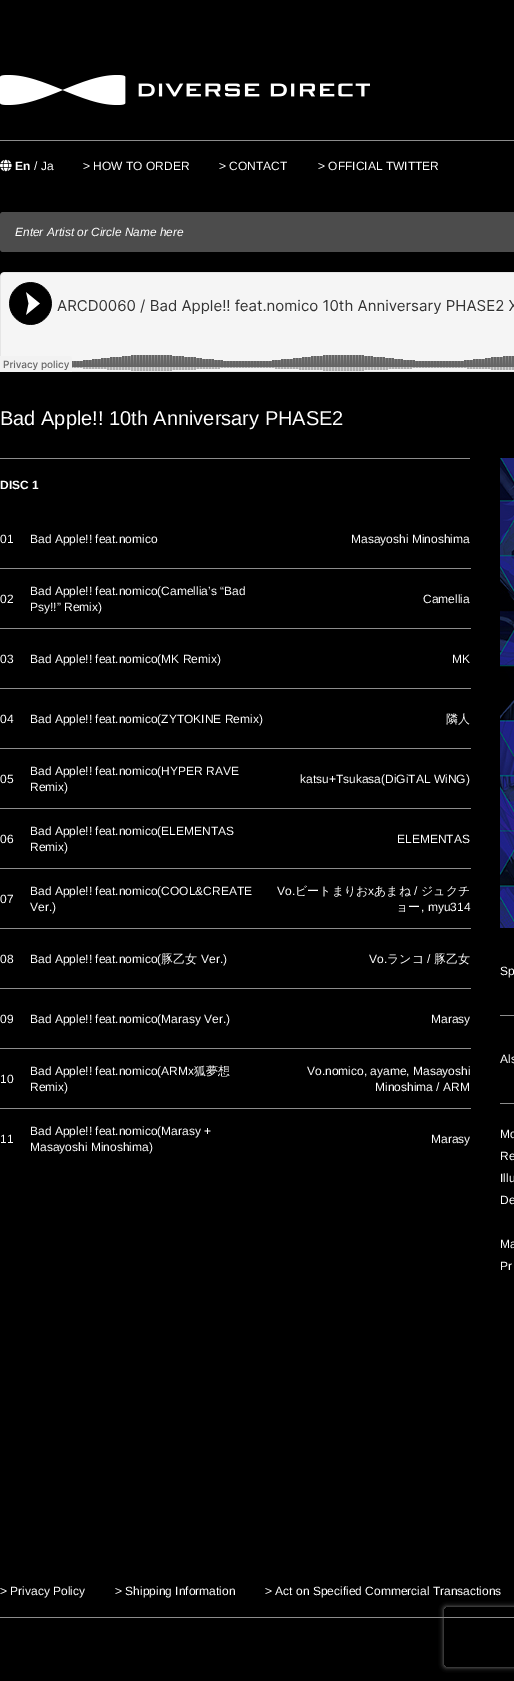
%!PS
<< /PageSize [514 1681] /PageUsesTransparency true >> setpagedevice
/alpha { dup .setfillconstantalpha .setstrokeconstantalpha } def
/roundrect { 5 dict begin { /r /h /w /y /x } { exch def } forall
  x r add y moveto x w add y 2 copy h add r arct x w add y h add x 1 index r arct
  x y h add x y r arct x y 2 copy exch w add exch r arct closepath end } def
/shadow { 12 dict begin { /a /b /q /h /w /y /x } { exch def } forall gsave /was 0 def
  9 -2 -9 { dup b mul 4 div /e exch def 1 sub .425 mul 2.718 exch exp 1 add a .99 .min exch div /now exch def
    1 1 now sub 1 was sub div sub alpha /was now def
    w h .min e 2 mul add 0 gt { x e sub y e sub w e 2 mul add h e 2 mul add
      q e add b .6 mul add w h .min 2 div e add .min 0 .max roundrect fill } if } for grestore end } def
/picture { 5 dict begin { /h /w /y /x /name } { exch def } forall
  gsave x y translate w h scale
  w h 8 [w 0 0 h 0 0] name (r) file false 3 colorimage grestore end } def
0 .pushpdf14devicefilter
0 1681 translate 1 -1 scale
4 setmiterlimit
0 setgray
0 0 514 1681 rectfill
(img1.rgb) 0 75 370 30 picture
0.549 setgray
0 140 514 1 rectfill
(img2.rgb) 0 159 12 13 picture
/LiberationSans-Bold [12 0 0 -12 0 0] selectfont
1 setgray
15 170 moveto (En) show
/LiberationSans-Regular [12 0 0 -12 0 0] selectfont
34 170 moveto (/ Ja) show
83 170 moveto (> HOW TO ORDER) show
219 170 moveto (> CONTACT) show
318 170 moveto (> OFFICIAL TWITTER) show
0.298 setgray
0 212 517 40 3 roundrect fill
/LiberationSans-Italic [11.9 0 0 -11.9 0 0] selectfont
1 setgray
15 236 moveto (Enter Artist or Circle Name here) show
(img3.rgb) 0 272 514 100 picture
/LiberationSans-Regular [20 0 0 -20 0 0] selectfont
0 425 moveto (Bad Apple!! 10th Anniversary PHASE2) show
0.549 setgray
0 458 470 1 rectfill
/LiberationSans-Bold [12 0 0 -12 0 0] selectfont
1 setgray
0 489 moveto (DISC 1) show
/LiberationSans-Regular [12 0 0 -12 0 0] selectfont
0 543 moveto (01) show
30 543 moveto (Bad Apple!! feat.nomico) show
351 543 moveto (Masayoshi Minoshima) show
0 603 moveto (02) show
30 595 moveto (Bad Apple!! feat.nomico\(Camellia’s “Bad) show
30 611 moveto (Psy!!” Remix\)) show
0.549 setgray
0 568 471 1 rectfill
1 setgray
423 603 moveto (Camellia) show
0 663 moveto (03) show
30 663 moveto (Bad Apple!! feat.nomico\(MK Remix\)) show
0.549 setgray
0 628 471 1 rectfill
1 setgray
452 663 moveto (MK) show
0 723 moveto (04) show
30 723 moveto (Bad Apple!! feat.nomico\(ZYTOKINE Remix\)) show
0.549 setgray
0 688 471 1 rectfill
/WenQuanYiZenHei-Medium [12 0 0 -12 0 0] selectfont
1 setgray
446 723 moveto (隣人) show
/LiberationSans-Regular [12 0 0 -12 0 0] selectfont
0 783 moveto (05) show
30 775 moveto (Bad Apple!! feat.nomico\(HYPER RAVE) show
30 791 moveto (Remix\)) show
0.549 setgray
0 748 471 1 rectfill
1 setgray
300 783 moveto (katsu+Tsukasa\(DiGiTAL WiNG\)) show
0 843 moveto (06) show
30 835 moveto (Bad Apple!! feat.nomico\(ELEMENTAS) show
30 851 moveto (Remix\)) show
0.549 setgray
0 808 471 1 rectfill
1 setgray
397 843 moveto (ELEMENTAS) show
0 903 moveto (07) show
30 895 moveto (Bad Apple!! feat.nomico\(COOL&CREATE) show
30 911 moveto (Ver.\)) show
0.549 setgray
0 868 471 1 rectfill
1 setgray
277 895 moveto (Vo.) show
/WenQuanYiZenHei-Medium [12 0 0 -12 0 0] selectfont
295 895 moveto (ビートまりお) show
/LiberationSans-Regular [12 0 0 -12 0 0] selectfont
368 895 moveto (x) show
/WenQuanYiZenHei-Medium [12 0 0 -12 0 0] selectfont
374 895 moveto (あまね) show
/LiberationSans-Regular [12 0 0 -12 0 0] selectfont
414 895 moveto (/) show
/WenQuanYiZenHei-Medium [12 0 0 -12 0 0] selectfont
421 895 moveto (ジュクチ) show
396 911 moveto (ョー) show
/LiberationSans-Regular [12 0 0 -12 0 0] selectfont
421 911 moveto (, myu314) show
0 963 moveto (08) show
30 963 moveto (Bad Apple!! feat.nomico\() show
/WenQuanYiZenHei-Medium [12 0 0 -12 0 0] selectfont
161 963 moveto (豚乙女) show
/LiberationSans-Regular [12 0 0 -12 0 0] selectfont
201 963 moveto (Ver.\)) show
0.549 setgray
0 928 471 1 rectfill
1 setgray
369 963 moveto (Vo.) show
/WenQuanYiZenHei-Medium [12 0 0 -12 0 0] selectfont
387 963 moveto (ランコ) show
/LiberationSans-Regular [12 0 0 -12 0 0] selectfont
427 963 moveto (/) show
/WenQuanYiZenHei-Medium [12 0 0 -12 0 0] selectfont
434 963 moveto (豚乙女) show
/LiberationSans-Regular [12 0 0 -12 0 0] selectfont
0 1023 moveto (09) show
30 1023 moveto (Bad Apple!! feat.nomico\(Marasy Ver.\)) show
0.549 setgray
0 988 471 1 rectfill
1 setgray
431 1023 moveto (Marasy) show
0 1083 moveto (10) show
30 1075 moveto (Bad Apple!! feat.nomico\(ARMx) show
/WenQuanYiZenHei-Medium [12 0 0 -12 0 0] selectfont
194 1075 moveto (狐夢想) show
/LiberationSans-Regular [12 0 0 -12 0 0] selectfont
30 1091 moveto (Remix\)) show
0.549 setgray
0 1048 471 1 rectfill
1 setgray
307 1075 moveto (Vo.nomico, ayame, Masayoshi) show
375 1091 moveto (Minoshima / ARM) show
0 1143 moveto (11) show
30 1135 moveto (Bad Apple!! feat.nomico\(Marasy +) show
30 1151 moveto (Masayoshi Minoshima\)) show
0.549 setgray
0 1108 471 1 rectfill
1 setgray
431 1143 moveto (Marasy) show
(img4.rgb) 500 458 14 470 picture
0.549 setgray
500 1015 14 1 rectfill
1 setgray
500 975 moveto (Sp) show
0.549 setgray
500 1103 14 1 rectfill
1 setgray
500 1063 moveto (Als) show
500 1138 moveto (Mo) show
500 1160 moveto (Re) show
500 1182 moveto (Illu) show
500 1204 moveto (De) show
500 1248 moveto (Ma) show
500 1270 moveto (Pr) show
0.549 setgray
0 1617 514 1 rectfill
1 setgray
0 1595 moveto (> Privacy Policy) show
115 1595 moveto (> Shipping Information) show
265 1595 moveto (> Act on Specified Commercial Transactions) show
gsave
newpath 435 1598 moveto 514 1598 lineto 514 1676 lineto 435 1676 lineto closepath 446 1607 moveto 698 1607 lineto 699 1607 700 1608 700 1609 curveto 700 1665 lineto 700 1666 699 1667 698 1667 curveto 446 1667 lineto 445 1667 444 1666 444 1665 curveto 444 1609 lineto 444 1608 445 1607 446 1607 curveto closepath eoclip newpath
0.502 setgray
444 1607 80 60 2 2.5 1 shadow
grestore
.poppdf14devicefilter showpage
